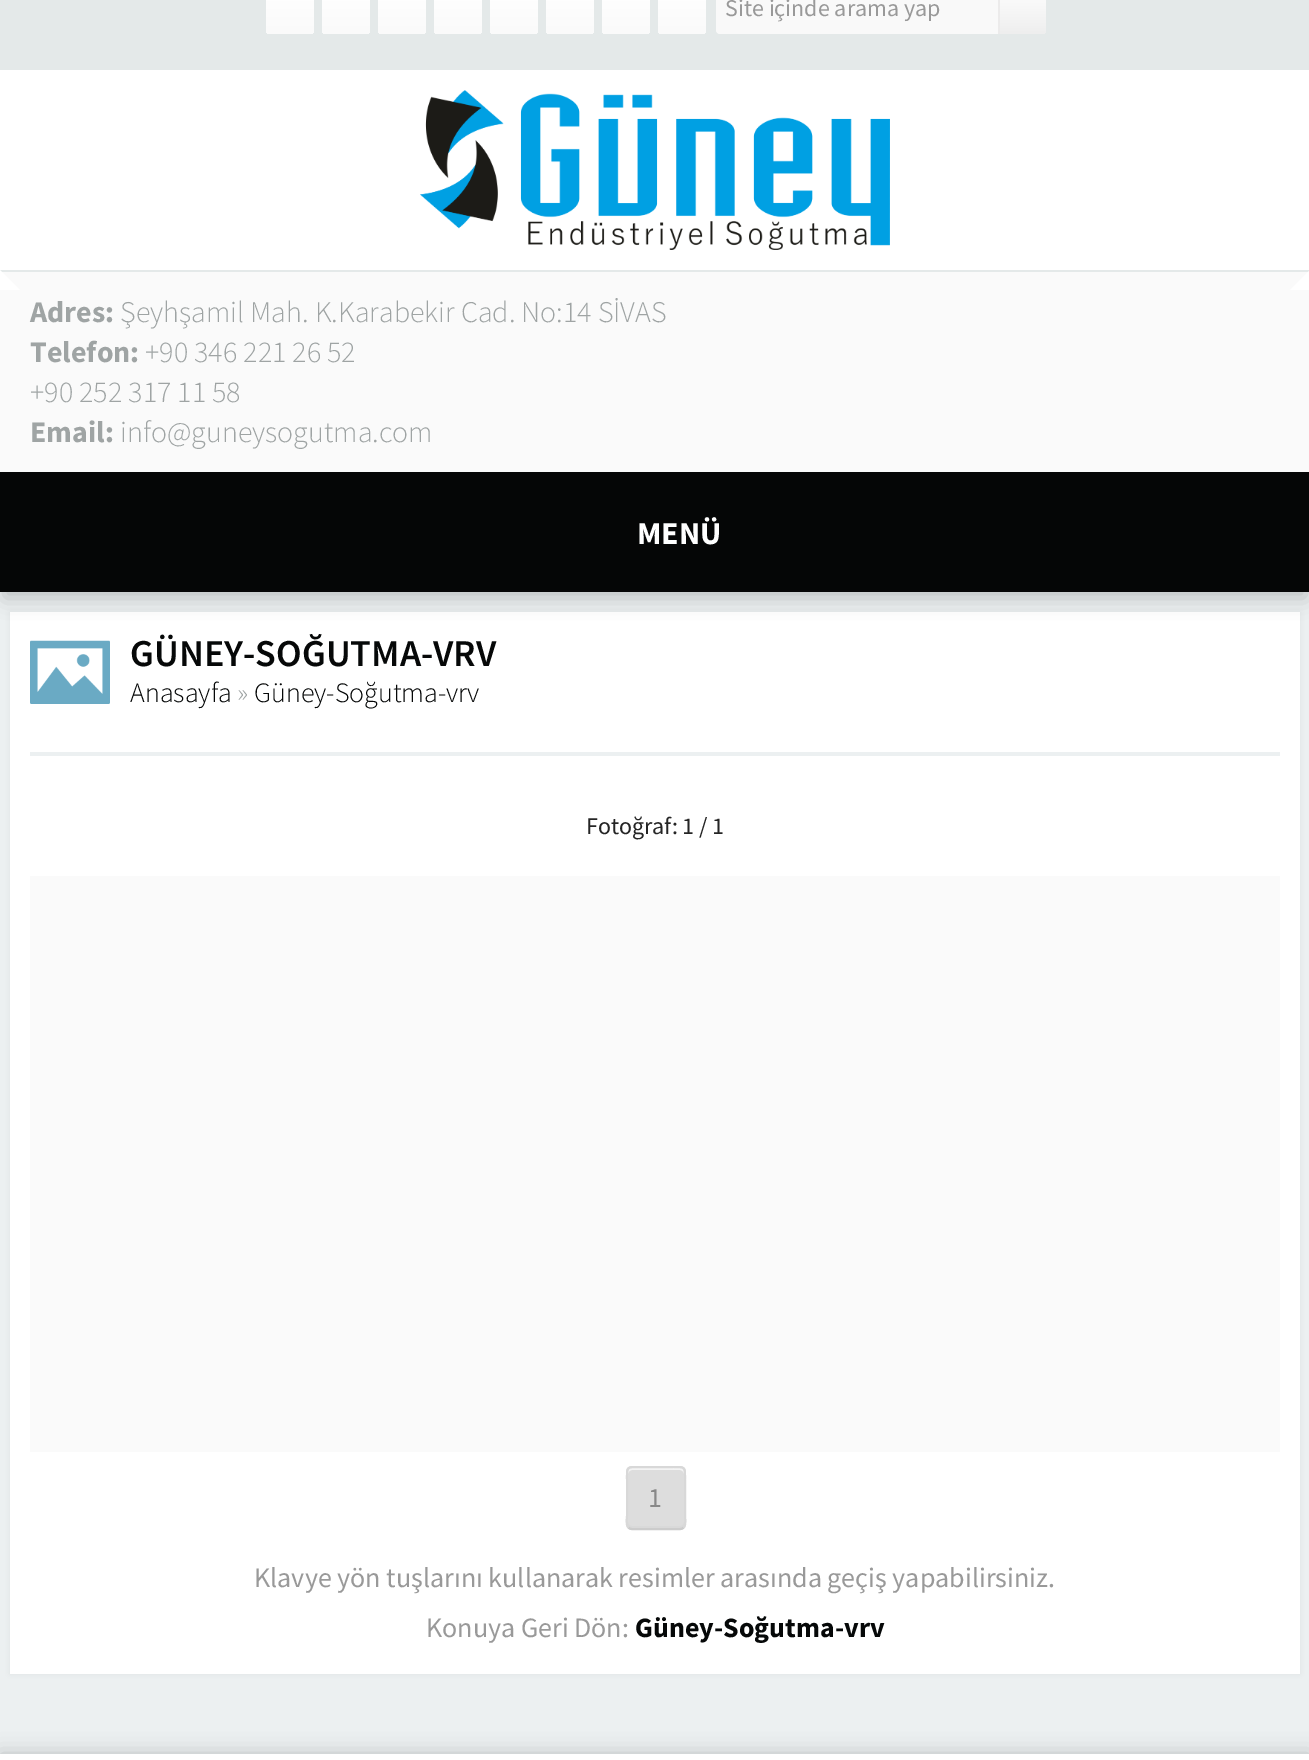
%!PS
<< /PageSize [1309 1760] /PageUsesTransparency true >> setpagedevice
/alpha { dup .setfillconstantalpha .setstrokeconstantalpha } def
/roundrect { 5 dict begin { /r /h /w /y /x } { exch def } forall
  x r add y moveto x w add y 2 copy h add r arct x w add y h add x 1 index r arct
  x y h add x y r arct x y 2 copy exch w add exch r arct closepath end } def
/shadow { 12 dict begin { /a /b /q /h /w /y /x } { exch def } forall gsave /was 0 def
  9 -2 -9 { dup b mul 4 div /e exch def 1 sub .425 mul 2.718 exch exp 1 add a .99 .min exch div /now exch def
    1 1 now sub 1 was sub div sub alpha /was now def
    w h .min e 2 mul add 0 gt { x e sub y e sub w e 2 mul add h e 2 mul add
      q e add b .6 mul add w h .min 2 div e add .min 0 .max roundrect fill } if } for grestore end } def
/picture { 5 dict begin { /h /w /y /x /name } { exch def } forall
  gsave x y translate w h scale
  w h 8 [w 0 0 h 0 0] name (r) file false 3 colorimage grestore end } def
0 .pushpdf14devicefilter
0 1760 translate 1 -1 scale
4 setmiterlimit
0.925 0.941 0.945 setrgbcolor
0 0 1309 1760 rectfill
1 setgray
0 70 1309 200 rectfill
0.894 0.914 0.914 setrgbcolor
0 0 1309 70 rectfill
gsave 266 -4 48 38 4 roundrect clip newpath
<< /ShadingType 2 /ColorSpace /DeviceRGB /Coords [290 34 290 -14] /Extend [true true] /Function << /FunctionType 2 /Domain [0 1] /C0 [0.98 0.98 0.98] /C1 [1 1 1] /N 1 >> >> shfill grestore
gsave 322 -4 48 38 4 roundrect clip newpath
<< /ShadingType 2 /ColorSpace /DeviceRGB /Coords [346 34 346 -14] /Extend [true true] /Function << /FunctionType 2 /Domain [0 1] /C0 [0.98 0.98 0.98] /C1 [1 1 1] /N 1 >> >> shfill grestore
gsave 378 -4 48 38 4 roundrect clip newpath
<< /ShadingType 2 /ColorSpace /DeviceRGB /Coords [402 34 402 -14] /Extend [true true] /Function << /FunctionType 2 /Domain [0 1] /C0 [0.98 0.98 0.98] /C1 [1 1 1] /N 1 >> >> shfill grestore
gsave 434 -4 48 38 4 roundrect clip newpath
<< /ShadingType 2 /ColorSpace /DeviceRGB /Coords [458 34 458 -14] /Extend [true true] /Function << /FunctionType 2 /Domain [0 1] /C0 [0.98 0.98 0.98] /C1 [1 1 1] /N 1 >> >> shfill grestore
gsave 490 -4 48 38 4 roundrect clip newpath
<< /ShadingType 2 /ColorSpace /DeviceRGB /Coords [514 34 514 -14] /Extend [true true] /Function << /FunctionType 2 /Domain [0 1] /C0 [0.98 0.98 0.98] /C1 [1 1 1] /N 1 >> >> shfill grestore
gsave 546 -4 48 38 4 roundrect clip newpath
<< /ShadingType 2 /ColorSpace /DeviceRGB /Coords [570 34 570 -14] /Extend [true true] /Function << /FunctionType 2 /Domain [0 1] /C0 [0.98 0.98 0.98] /C1 [1 1 1] /N 1 >> >> shfill grestore
gsave 602 -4 48 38 4 roundrect clip newpath
<< /ShadingType 2 /ColorSpace /DeviceRGB /Coords [626 34 626 -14] /Extend [true true] /Function << /FunctionType 2 /Domain [0 1] /C0 [0.98 0.98 0.98] /C1 [1 1 1] /N 1 >> >> shfill grestore
gsave 658 -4 48 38 4 roundrect clip newpath
<< /ShadingType 2 /ColorSpace /DeviceRGB /Coords [682 34 682 -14] /Extend [true true] /Function << /FunctionType 2 /Domain [0 1] /C0 [0.98 0.98 0.98] /C1 [1 1 1] /N 1 >> >> shfill grestore
0.976 setgray
716 -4 330 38 4 roundrect fill
/SourceSansPro-Regular [24 0 0 -24 0 0] selectfont
0.6 setgray
725 16 moveto (Site içinde arama yap) show
gsave newpath 998 -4 moveto 1042 -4 lineto 1044 -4 1046 -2 1046 0 curveto 1046 30 lineto 1046 32 1044 34 1042 34 curveto 998 34 lineto closepath clip newpath
<< /ShadingType 2 /ColorSpace /DeviceRGB /Coords [1023 -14 1023 34] /Extend [true true] /Function << /FunctionType 2 /Domain [0 1] /C0 [1 1 1] /C1 [0.933 0.933 0.933] /N 1 >> >> shfill grestore
0.925 0.922 0.922 setrgbcolor
998 0 2 34 rectfill
(img1.rgb) 420 90 470 160 picture
0 setgray
10 612 1290 1062 0 3 0.06 shadow
1 setgray
10 612 1290 1062 rectfill
0 setgray
4 486 1302 112 0 10 0.2 shadow
0.98 setgray
0 272 1309 200 rectfill
0.894 0.914 0.914 setrgbcolor
0 270 1309 2 rectfill
1 setgray
newpath 0 290 moveto 0 270 lineto 20 290 lineto closepath fill
newpath 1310 290 moveto 1290 290 lineto 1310 270 lineto closepath fill
/SourceSansPro-Bold [30 0 0 -30 0 0] selectfont
0.624 0.643 0.643 setrgbcolor
30 322 moveto (Adres:) show
/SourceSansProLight-Light [30 0 0 -30 0 0] selectfont
120 322 moveto (Şeyhşamil Mah. K.Karabekir Cad. No:14 SİVAS) show
/SourceSansPro-Bold [30 0 0 -30 0 0] selectfont
30 362 moveto (Telefon:) show
/SourceSansProLight-Light [30 0 0 -30 0 0] selectfont
145 362 moveto (+90 346 221 26 52) show
30 402 moveto (+90 252 317 11 58) show
/SourceSansPro-Bold [30 0 0 -30 0 0] selectfont
30 442 moveto (Email:) show
/SourceSansProLight-Light [30 0 0 -30 0 0] selectfont
120 442 moveto (info@guneysogutma.com) show
0.02 0.024 0.024 setrgbcolor
0 472 1309 120 rectfill
/SourceSansPro-Bold [32 0 0 -32 0 0] selectfont
1 setgray
637 544 moveto (MENÜ) show
0.925 0.941 0.945 setrgbcolor
30 752 1250 4 rectfill
(img2.rgb) 30 640 80 64 picture
/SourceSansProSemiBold-SemiBold [38 0 0 -38 0 0] selectfont
0.024 0.031 0.031 setrgbcolor
130 666 moveto (GÜNEY-SOĞUTMA-VRV) show
/SourceSansProLight-Light [28 0 0 -28 0 0] selectfont
130 702 moveto (Anasayfa) show
0.624 0.643 0.643 setrgbcolor
237 702 moveto (») show
0.024 0.031 0.031 setrgbcolor
254 702 moveto (Güney-Soğutma-vrv) show
/SourceSansPro-Regular [24 0 0 -24 0 0] selectfont
0.145 setgray
586 834 moveto (Fotoğraf: 1 / 1) show
0.98 setgray
30 876 1250 576 rectfill
0.867 setgray
626 1466 60 64 6 roundrect fill
0.851 setgray
newpath 628 1522 moveto 628 1530 633 1528 640 1528 curveto 672 1528 lineto 679 1528 684 1530 684 1522 curveto 684 1524 682 1526 680 1526 curveto 632 1526 lineto 630 1526 628 1524 628 1522 curveto closepath fill
0.957 setgray
newpath 632 1470 moveto 680 1470 lineto 682 1470 684 1472 684 1474 curveto 684 1466 679 1468 672 1468 curveto 640 1468 lineto 633 1468 628 1466 628 1474 curveto 628 1472 630 1470 632 1470 curveto closepath fill
0.8 setgray
2 setlinewidth
newpath 683.5 1527.5 moveto 682.5 1528.5 681.5 1529 680 1529 curveto 632 1529 lineto 630.5 1529 629.5 1528.5 628.5 1527.5 curveto stroke
0.847 setgray
newpath 628.5 1527.5 moveto 625.5 1524.5 627 1518 627 1515.5 curveto 627 1480.5 lineto 627 1466.5 626 1467 640 1467 curveto 672 1467 lineto 686 1467 685 1466.5 685 1480.5 curveto 685 1515.5 lineto 685 1518 686.5 1524.5 683.5 1527.5 curveto stroke
/SourceSansPro-Regular [28 0 0 -28 0 0] selectfont
0.533 setgray
648 1507 moveto (1) show
0.6 setgray
254 1587 moveto (Klavye yön tuşlarını kullanarak resimler arasında geçiş yapabilirsiniz.) show
426 1637 moveto (Konuya Geri Dön:) show
/SourceSansPro-Bold [28 0 0 -28 0 0] selectfont
0.024 0.031 0.031 setrgbcolor
635 1637 moveto (Güney-Soğutma-vrv) show
0 setgray
0 1754 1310 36 0 10 0.2 shadow
1 setgray
0 1754 1309 6 rectfill
.poppdf14devicefilter showpage
